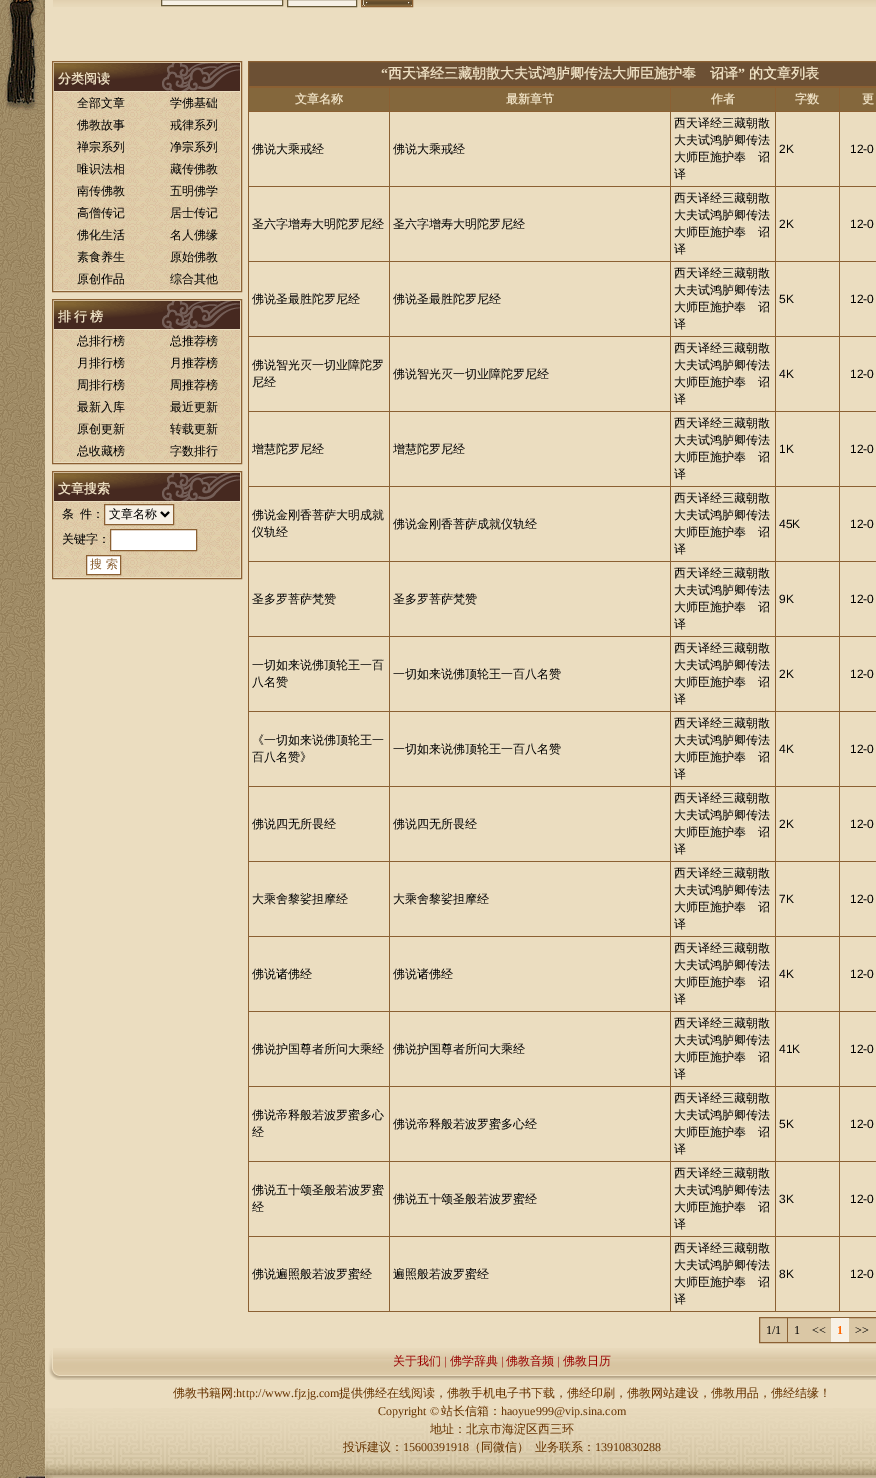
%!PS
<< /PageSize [876 1478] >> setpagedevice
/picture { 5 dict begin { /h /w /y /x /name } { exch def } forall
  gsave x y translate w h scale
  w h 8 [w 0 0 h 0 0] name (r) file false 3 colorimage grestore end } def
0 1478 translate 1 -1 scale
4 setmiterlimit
1 setgray
0 0 876 1478 rectfill
(img1.rgb) 0 113 45 1361 picture
(img2.rgb) 0 0 45 113 picture
0.922 0.867 0.753 setrgbcolor
45 7 831 1401 rectfill
(img3.rgb) 53 0 823 7 picture
45 0 8 7 rectfill
0.969 0.945 0.902 setrgbcolor
newpath 161.5 -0.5 moveto 282.5 -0.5 lineto 282.5 5.5 lineto 161.5 5.5 lineto closepath gsave fill grestore
0.404 0.349 0.22 setrgbcolor
stroke
0.969 0.945 0.902 setrgbcolor
newpath 287.5 -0.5 moveto 356.5 -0.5 lineto 356.5 6.5 lineto 287.5 6.5 lineto closepath gsave fill grestore
0.404 0.349 0.22 setrgbcolor
stroke
0.855 0.78 0.643 setrgbcolor
361 5 2 1 rectfill
(img4.rgb) 362 0 50 6 picture
0.545 0.376 0.2 setrgbcolor
361.5 -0.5 51 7 rectstroke
52.5 61.5 189 230 rectstroke
(img5.rgb) 54 63 186 28 picture
/WenQuanYiZenHei-Bold [13 0 0 -13 0 0] selectfont
0.922 0.867 0.753 setrgbcolor
58 83 moveto (分类阅读) show
(img6.rgb) 54 92 186 198 picture
/WenQuanYiZenHei-Medium [12 0 0 -12 0 0] selectfont
0 setgray
77 107 moveto (全部文章) show
170 107 moveto (学佛基础) show
77 129 moveto (佛教故事) show
170 129 moveto (戒律系列) show
77 151 moveto (禅宗系列) show
170 151 moveto (净宗系列) show
77 173 moveto (唯识法相) show
170 173 moveto (藏传佛教) show
77 195 moveto (南传佛教) show
170 195 moveto (五明佛学) show
77 217 moveto (高僧传记) show
170 217 moveto (居士传记) show
77 239 moveto (佛化生活) show
170 239 moveto (名人佛缘) show
77 261 moveto (素食养生) show
170 261 moveto (原始佛教) show
77 283 moveto (原创作品) show
170 283 moveto (综合其他) show
0.545 0.376 0.2 setrgbcolor
52.5 299.5 189 164 rectstroke
(img5.rgb) 54 301 186 28 picture
/WenQuanYiZenHei-Bold [13 0 0 -13 0 0] selectfont
0.922 0.867 0.753 setrgbcolor
58 321 moveto -1 0 32 (排 行 榜) widthshow
(img7.rgb) 54 330 186 132 picture
/WenQuanYiZenHei-Medium [12 0 0 -12 0 0] selectfont
0 setgray
77 345 moveto (总排行榜) show
170 345 moveto (总推荐榜) show
77 367 moveto (月排行榜) show
170 367 moveto (月推荐榜) show
77 389 moveto (周排行榜) show
170 389 moveto (周推荐榜) show
77 411 moveto (最新入库) show
170 411 moveto (最近更新) show
77 433 moveto (原创更新) show
170 433 moveto (转载更新) show
77 455 moveto (总收藏榜) show
170 455 moveto (字数排行) show
0.545 0.376 0.2 setrgbcolor
52.5 471.5 189 107 rectstroke
(img5.rgb) 54 473 186 28 picture
/WenQuanYiZenHei-Bold [13 0 0 -13 0 0] selectfont
0.922 0.867 0.753 setrgbcolor
58 493 moveto (文章搜索) show
(img8.rgb) 54 502 186 75 picture
/WenQuanYiZenHei-Medium [12 0 0 -12 0 0] selectfont
0 setgray
62 518 moveto (条) show
80 518 moveto (件：) show
0.969 0.945 0.902 setrgbcolor
newpath 104.5 504.5 moveto 173.5 504.5 lineto 173.5 524.5 lineto 104.5 524.5 lineto closepath gsave fill grestore
0.545 0.376 0.2 setrgbcolor
stroke
0 setgray
2 setlinewidth
newpath 161 512 moveto 165 516 lineto 169 512 lineto stroke
109 518 moveto (文章名称) show
62 543 moveto (关键字：) show
1 setgray
newpath 110.5 529.5 moveto 196.5 529.5 lineto 196.5 550.5 lineto 110.5 550.5 lineto closepath gsave fill grestore
0.545 0.376 0.2 setrgbcolor
1 setlinewidth
stroke
1 setgray
newpath 86.5 555.5 moveto 120.5 555.5 lineto 120.5 574.5 lineto 86.5 574.5 lineto closepath gsave fill grestore
0.545 0.376 0.2 setrgbcolor
stroke
90 568 moveto (搜 索) show
248 1311 628 1 rectfill
248 87 1 1225 rectfill
0.424 0.314 0.204 setrgbcolor
newpath 248.5 61.5 moveto 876.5 61.5 lineto 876.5 86.5 lineto 248.5 86.5 lineto closepath gsave fill grestore
0.545 0.376 0.2 setrgbcolor
stroke
/LiberationSerif-Bold [14 0 0 -14 0 0] selectfont
0.922 0.867 0.753 setrgbcolor
381 78 moveto (“) show
/WenQuanYiZenHei-Bold [14 0 0 -14 0 0] selectfont
388 78 moveto (西天译经三藏朝散大夫试鸿胪卿传法大师臣施护奉　诏译) show
/LiberationSerif-Bold [14 0 0 -14 0 0] selectfont
738 78 moveto (”) show
/WenQuanYiZenHei-Bold [14 0 0 -14 0 0] selectfont
749 78 moveto (的文章列表) show
0.518 0.404 0.235 setrgbcolor
249 88 140 23 rectfill
0.545 0.376 0.2 setrgbcolor
839 87 37 1 rectfill
839 111 37 1 rectfill
839 186 37 1 rectfill
839 261 37 1 rectfill
839 336 37 1 rectfill
839 411 37 1 rectfill
839 486 37 1 rectfill
839 561 37 1 rectfill
839 636 37 1 rectfill
839 711 37 1 rectfill
839 786 37 1 rectfill
839 861 37 1 rectfill
839 936 37 1 rectfill
839 1011 37 1 rectfill
839 1086 37 1 rectfill
839 1161 37 1 rectfill
839 1236 37 1 rectfill
839 1236 1 76 rectfill
775 1236 65 1 rectfill
839 1161 1 76 rectfill
775 1161 65 1 rectfill
839 1086 1 76 rectfill
775 1086 65 1 rectfill
839 1011 1 76 rectfill
775 1011 65 1 rectfill
839 936 1 76 rectfill
775 936 65 1 rectfill
839 861 1 76 rectfill
775 861 65 1 rectfill
839 786 1 76 rectfill
775 786 65 1 rectfill
839 711 1 76 rectfill
775 711 65 1 rectfill
839 636 1 76 rectfill
775 636 65 1 rectfill
839 561 1 76 rectfill
775 561 65 1 rectfill
839 486 1 76 rectfill
775 486 65 1 rectfill
839 411 1 76 rectfill
775 411 65 1 rectfill
839 336 1 76 rectfill
775 336 65 1 rectfill
839 261 1 76 rectfill
775 261 65 1 rectfill
839 186 1 76 rectfill
775 186 65 1 rectfill
839 111 1 76 rectfill
775 111 65 1 rectfill
839 87 1 25 rectfill
775 87 65 1 rectfill
775 1236 1 76 rectfill
670 1236 106 1 rectfill
775 1161 1 76 rectfill
670 1161 106 1 rectfill
775 1086 1 76 rectfill
670 1086 106 1 rectfill
775 1011 1 76 rectfill
670 1011 106 1 rectfill
775 936 1 76 rectfill
670 936 106 1 rectfill
775 861 1 76 rectfill
670 861 106 1 rectfill
775 786 1 76 rectfill
670 786 106 1 rectfill
775 711 1 76 rectfill
670 711 106 1 rectfill
775 636 1 76 rectfill
670 636 106 1 rectfill
775 561 1 76 rectfill
670 561 106 1 rectfill
775 486 1 76 rectfill
670 486 106 1 rectfill
775 411 1 76 rectfill
670 411 106 1 rectfill
775 336 1 76 rectfill
670 336 106 1 rectfill
775 261 1 76 rectfill
670 261 106 1 rectfill
775 186 1 76 rectfill
670 186 106 1 rectfill
775 111 1 76 rectfill
670 111 106 1 rectfill
775 87 1 25 rectfill
670 87 106 1 rectfill
670 1236 1 76 rectfill
389 1236 282 1 rectfill
670 1161 1 76 rectfill
389 1161 282 1 rectfill
670 1086 1 76 rectfill
389 1086 282 1 rectfill
670 1011 1 76 rectfill
389 1011 282 1 rectfill
670 936 1 76 rectfill
389 936 282 1 rectfill
670 861 1 76 rectfill
389 861 282 1 rectfill
670 786 1 76 rectfill
389 786 282 1 rectfill
670 711 1 76 rectfill
389 711 282 1 rectfill
670 636 1 76 rectfill
389 636 282 1 rectfill
670 561 1 76 rectfill
389 561 282 1 rectfill
670 486 1 76 rectfill
389 486 282 1 rectfill
670 411 1 76 rectfill
389 411 282 1 rectfill
670 336 1 76 rectfill
389 336 282 1 rectfill
670 261 1 76 rectfill
389 261 282 1 rectfill
670 186 1 76 rectfill
389 186 282 1 rectfill
670 111 1 76 rectfill
389 111 282 1 rectfill
670 87 1 25 rectfill
389 87 282 1 rectfill
389 1236 1 76 rectfill
248 1236 142 1 rectfill
389 1161 1 76 rectfill
248 1161 142 1 rectfill
389 1086 1 76 rectfill
248 1086 142 1 rectfill
389 1011 1 76 rectfill
248 1011 142 1 rectfill
389 936 1 76 rectfill
248 936 142 1 rectfill
389 861 1 76 rectfill
248 861 142 1 rectfill
389 786 1 76 rectfill
248 786 142 1 rectfill
389 711 1 76 rectfill
248 711 142 1 rectfill
389 636 1 76 rectfill
248 636 142 1 rectfill
389 561 1 76 rectfill
248 561 142 1 rectfill
389 486 1 76 rectfill
248 486 142 1 rectfill
389 411 1 76 rectfill
248 411 142 1 rectfill
389 336 1 76 rectfill
248 336 142 1 rectfill
389 261 1 76 rectfill
248 261 142 1 rectfill
389 186 1 76 rectfill
248 186 142 1 rectfill
389 111 1 76 rectfill
248 111 142 1 rectfill
389 87 1 25 rectfill
248 87 142 1 rectfill
/WenQuanYiZenHei-Bold [12 0 0 -12 0 0] selectfont
0.922 0.867 0.753 setrgbcolor
295 103 moveto (文章名称) show
0.518 0.404 0.235 setrgbcolor
390 88 280 23 rectfill
0.922 0.867 0.753 setrgbcolor
506 103 moveto (最新章节) show
0.518 0.404 0.235 setrgbcolor
671 88 104 23 rectfill
0.922 0.867 0.753 setrgbcolor
711 103 moveto (作者) show
0.518 0.404 0.235 setrgbcolor
776 88 63 23 rectfill
0.922 0.867 0.753 setrgbcolor
795 103 moveto (字数) show
0.518 0.404 0.235 setrgbcolor
840 88 36 23 rectfill
0.922 0.867 0.753 setrgbcolor
862 103 moveto (更) show
/WenQuanYiZenHei-Medium [12 0 0 -12 0 0] selectfont
0 setgray
252 153 moveto (佛说大乘戒经) show
393 153 moveto (佛说大乘戒经) show
674 127 moveto (西天译经三藏朝散) show
674 144 moveto (大夫试鸿胪卿传法) show
674 161 moveto (大师臣施护奉　诏) show
674 178 moveto (译) show
/LiberationSans-Regular [12 0 0 -12 0 0] selectfont
779 153 moveto (2K) show
850 153 moveto (12-0) show
/WenQuanYiZenHei-Medium [12 0 0 -12 0 0] selectfont
252 228 moveto (圣六字增寿大明陀罗尼经) show
393 228 moveto (圣六字增寿大明陀罗尼经) show
674 202 moveto (西天译经三藏朝散) show
674 219 moveto (大夫试鸿胪卿传法) show
674 236 moveto (大师臣施护奉　诏) show
674 253 moveto (译) show
/LiberationSans-Regular [12 0 0 -12 0 0] selectfont
779 228 moveto (2K) show
850 228 moveto (12-0) show
/WenQuanYiZenHei-Medium [12 0 0 -12 0 0] selectfont
252 303 moveto (佛说圣最胜陀罗尼经) show
393 303 moveto (佛说圣最胜陀罗尼经) show
674 277 moveto (西天译经三藏朝散) show
674 294 moveto (大夫试鸿胪卿传法) show
674 311 moveto (大师臣施护奉　诏) show
674 328 moveto (译) show
/LiberationSans-Regular [12 0 0 -12 0 0] selectfont
779 303 moveto (5K) show
850 303 moveto (12-0) show
/WenQuanYiZenHei-Medium [12 0 0 -12 0 0] selectfont
252 369 moveto (佛说智光灭一切业障陀罗) show
252 386 moveto (尼经) show
393 378 moveto (佛说智光灭一切业障陀罗尼经) show
674 352 moveto (西天译经三藏朝散) show
674 369 moveto (大夫试鸿胪卿传法) show
674 386 moveto (大师臣施护奉　诏) show
674 403 moveto (译) show
/LiberationSans-Regular [12 0 0 -12 0 0] selectfont
779 378 moveto (4K) show
850 378 moveto (12-0) show
/WenQuanYiZenHei-Medium [12 0 0 -12 0 0] selectfont
252 453 moveto (增慧陀罗尼经) show
393 453 moveto (增慧陀罗尼经) show
674 427 moveto (西天译经三藏朝散) show
674 444 moveto (大夫试鸿胪卿传法) show
674 461 moveto (大师臣施护奉　诏) show
674 478 moveto (译) show
/LiberationSans-Regular [12 0 0 -12 0 0] selectfont
779 453 moveto (1K) show
850 453 moveto (12-0) show
/WenQuanYiZenHei-Medium [12 0 0 -12 0 0] selectfont
252 519 moveto (佛说金刚香菩萨大明成就) show
252 536 moveto (仪轨经) show
393 528 moveto (佛说金刚香菩萨成就仪轨经) show
674 502 moveto (西天译经三藏朝散) show
674 519 moveto (大夫试鸿胪卿传法) show
674 536 moveto (大师臣施护奉　诏) show
674 553 moveto (译) show
/LiberationSans-Regular [12 0 0 -12 0 0] selectfont
779 528 moveto (45K) show
850 528 moveto (12-0) show
/WenQuanYiZenHei-Medium [12 0 0 -12 0 0] selectfont
252 603 moveto (圣多罗菩萨梵赞) show
393 603 moveto (圣多罗菩萨梵赞) show
674 577 moveto (西天译经三藏朝散) show
674 594 moveto (大夫试鸿胪卿传法) show
674 611 moveto (大师臣施护奉　诏) show
674 628 moveto (译) show
/LiberationSans-Regular [12 0 0 -12 0 0] selectfont
779 603 moveto (9K) show
850 603 moveto (12-0) show
/WenQuanYiZenHei-Medium [12 0 0 -12 0 0] selectfont
252 669 moveto (一切如来说佛顶轮王一百) show
252 686 moveto (八名赞) show
393 678 moveto (一切如来说佛顶轮王一百八名赞) show
674 652 moveto (西天译经三藏朝散) show
674 669 moveto (大夫试鸿胪卿传法) show
674 686 moveto (大师臣施护奉　诏) show
674 703 moveto (译) show
/LiberationSans-Regular [12 0 0 -12 0 0] selectfont
779 678 moveto (2K) show
850 678 moveto (12-0) show
/WenQuanYiZenHei-Medium [12 0 0 -12 0 0] selectfont
252 744 moveto (《一切如来说佛顶轮王一) show
252 761 moveto (百八名赞》) show
393 753 moveto (一切如来说佛顶轮王一百八名赞) show
674 727 moveto (西天译经三藏朝散) show
674 744 moveto (大夫试鸿胪卿传法) show
674 761 moveto (大师臣施护奉　诏) show
674 778 moveto (译) show
/LiberationSans-Regular [12 0 0 -12 0 0] selectfont
779 753 moveto (4K) show
850 753 moveto (12-0) show
/WenQuanYiZenHei-Medium [12 0 0 -12 0 0] selectfont
252 828 moveto (佛说四无所畏经) show
393 828 moveto (佛说四无所畏经) show
674 802 moveto (西天译经三藏朝散) show
674 819 moveto (大夫试鸿胪卿传法) show
674 836 moveto (大师臣施护奉　诏) show
674 853 moveto (译) show
/LiberationSans-Regular [12 0 0 -12 0 0] selectfont
779 828 moveto (2K) show
850 828 moveto (12-0) show
/WenQuanYiZenHei-Medium [12 0 0 -12 0 0] selectfont
252 903 moveto (大乘舍黎娑担摩经) show
393 903 moveto (大乘舍黎娑担摩经) show
674 877 moveto (西天译经三藏朝散) show
674 894 moveto (大夫试鸿胪卿传法) show
674 911 moveto (大师臣施护奉　诏) show
674 928 moveto (译) show
/LiberationSans-Regular [12 0 0 -12 0 0] selectfont
779 903 moveto (7K) show
850 903 moveto (12-0) show
/WenQuanYiZenHei-Medium [12 0 0 -12 0 0] selectfont
252 978 moveto (佛说诸佛经) show
393 978 moveto (佛说诸佛经) show
674 952 moveto (西天译经三藏朝散) show
674 969 moveto (大夫试鸿胪卿传法) show
674 986 moveto (大师臣施护奉　诏) show
674 1003 moveto (译) show
/LiberationSans-Regular [12 0 0 -12 0 0] selectfont
779 978 moveto (4K) show
850 978 moveto (12-0) show
/WenQuanYiZenHei-Medium [12 0 0 -12 0 0] selectfont
252 1053 moveto (佛说护国尊者所问大乘经) show
393 1053 moveto (佛说护国尊者所问大乘经) show
674 1027 moveto (西天译经三藏朝散) show
674 1044 moveto (大夫试鸿胪卿传法) show
674 1061 moveto (大师臣施护奉　诏) show
674 1078 moveto (译) show
/LiberationSans-Regular [12 0 0 -12 0 0] selectfont
779 1053 moveto (41K) show
850 1053 moveto (12-0) show
/WenQuanYiZenHei-Medium [12 0 0 -12 0 0] selectfont
252 1119 moveto (佛说帝释般若波罗蜜多心) show
252 1136 moveto (经) show
393 1128 moveto (佛说帝释般若波罗蜜多心经) show
674 1102 moveto (西天译经三藏朝散) show
674 1119 moveto (大夫试鸿胪卿传法) show
674 1136 moveto (大师臣施护奉　诏) show
674 1153 moveto (译) show
/LiberationSans-Regular [12 0 0 -12 0 0] selectfont
779 1128 moveto (5K) show
850 1128 moveto (12-0) show
/WenQuanYiZenHei-Medium [12 0 0 -12 0 0] selectfont
252 1194 moveto (佛说五十颂圣般若波罗蜜) show
252 1211 moveto (经) show
393 1203 moveto (佛说五十颂圣般若波罗蜜经) show
674 1177 moveto (西天译经三藏朝散) show
674 1194 moveto (大夫试鸿胪卿传法) show
674 1211 moveto (大师臣施护奉　诏) show
674 1228 moveto (译) show
/LiberationSans-Regular [12 0 0 -12 0 0] selectfont
779 1203 moveto (3K) show
850 1203 moveto (12-0) show
/WenQuanYiZenHei-Medium [12 0 0 -12 0 0] selectfont
252 1278 moveto (佛说遍照般若波罗蜜经) show
393 1278 moveto (遍照般若波罗蜜经) show
674 1252 moveto (西天译经三藏朝散) show
674 1269 moveto (大夫试鸿胪卿传法) show
674 1286 moveto (大师臣施护奉　诏) show
674 1303 moveto (译) show
/LiberationSans-Regular [12 0 0 -12 0 0] selectfont
779 1278 moveto (8K) show
850 1278 moveto (12-0) show
0.855 0.78 0.647 setrgbcolor
newpath 759.5 1317.5 moveto 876.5 1317.5 lineto 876.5 1342.5 lineto 759.5 1342.5 lineto closepath gsave fill grestore
0.545 0.376 0.2 setrgbcolor
stroke
787 1318 1 24 rectfill
/LiberationSerif-Regular [12 0 0 -12 0 0] selectfont
0 setgray
766 1334 moveto (1/1) show
794 1334 moveto (1) show
812 1334 moveto (<<) show
0.969 0.945 0.902 setrgbcolor
831 1318 18 24 rectfill
/LiberationSerif-Bold [12 0 0 -12 0 0] selectfont
1 0.4 0 setrgbcolor
837 1334 moveto (1) show
/LiberationSerif-Regular [12 0 0 -12 0 0] selectfont
0 setgray
855 1334 moveto (>>) show
(img9.rgb) 59 1348 817 32 picture
(img10.rgb) 45 1348 14 32 picture
/WenQuanYiZenHei-Medium [12 0 0 -12 0 0] selectfont
0.6 0 0 setrgbcolor
393 1365 moveto (关于我们) show
/LiberationSerif-Regular [12 0 0 -12 0 0] selectfont
444 1365 moveto (|) show
/WenQuanYiZenHei-Medium [12 0 0 -12 0 0] selectfont
450 1365 moveto (佛学辞典) show
/LiberationSerif-Regular [12 0 0 -12 0 0] selectfont
501 1365 moveto (|) show
/WenQuanYiZenHei-Medium [12 0 0 -12 0 0] selectfont
506 1365 moveto (佛教音频) show
/LiberationSerif-Regular [12 0 0 -12 0 0] selectfont
557 1365 moveto (|) show
/WenQuanYiZenHei-Medium [12 0 0 -12 0 0] selectfont
563 1365 moveto (佛教日历) show
(img11.rgb) 45 1408 831 66 picture
0.4 0.2 0 setrgbcolor
173 1397 moveto (佛教书籍网) show
/LiberationSerif-Regular [12 0 0 -12 0 0] selectfont
233 1397 moveto (:http://www.fjzjg.com) show
/WenQuanYiZenHei-Medium [12 0 0 -12 0 0] selectfont
339 1397 moveto (提供佛经在线阅读，佛教手机电子书下载，佛经印刷，佛教网站建设，佛教用品，佛经结缘！) show
/LiberationSerif-Regular [12 0 0 -12 0 0] selectfont
378 1415 moveto (Copyright ©) show
/WenQuanYiZenHei-Medium [12 0 0 -12 0 0] selectfont
441 1415 moveto (站长信箱：) show
/LiberationSerif-Regular [12 0 0 -12 0 0] selectfont
501 1415 moveto (haoyue999@vip.sina.com) show
/WenQuanYiZenHei-Medium [12 0 0 -12 0 0] selectfont
430 1433 moveto (地址：北京市海淀区西三环) show
343 1451 moveto (投诉建议：) show
/LiberationSerif-Regular [12 0 0 -12 0 0] selectfont
403 1451 moveto (15600391918) show
/WenQuanYiZenHei-Medium [12 0 0 -12 0 0] selectfont
469 1451 moveto (（同微信）) show
535 1451 moveto (业务联系：) show
/LiberationSerif-Regular [12 0 0 -12 0 0] selectfont
595 1451 moveto (13910830288) show
(img12.rgb) 0 1474 876 4 picture
showpage
